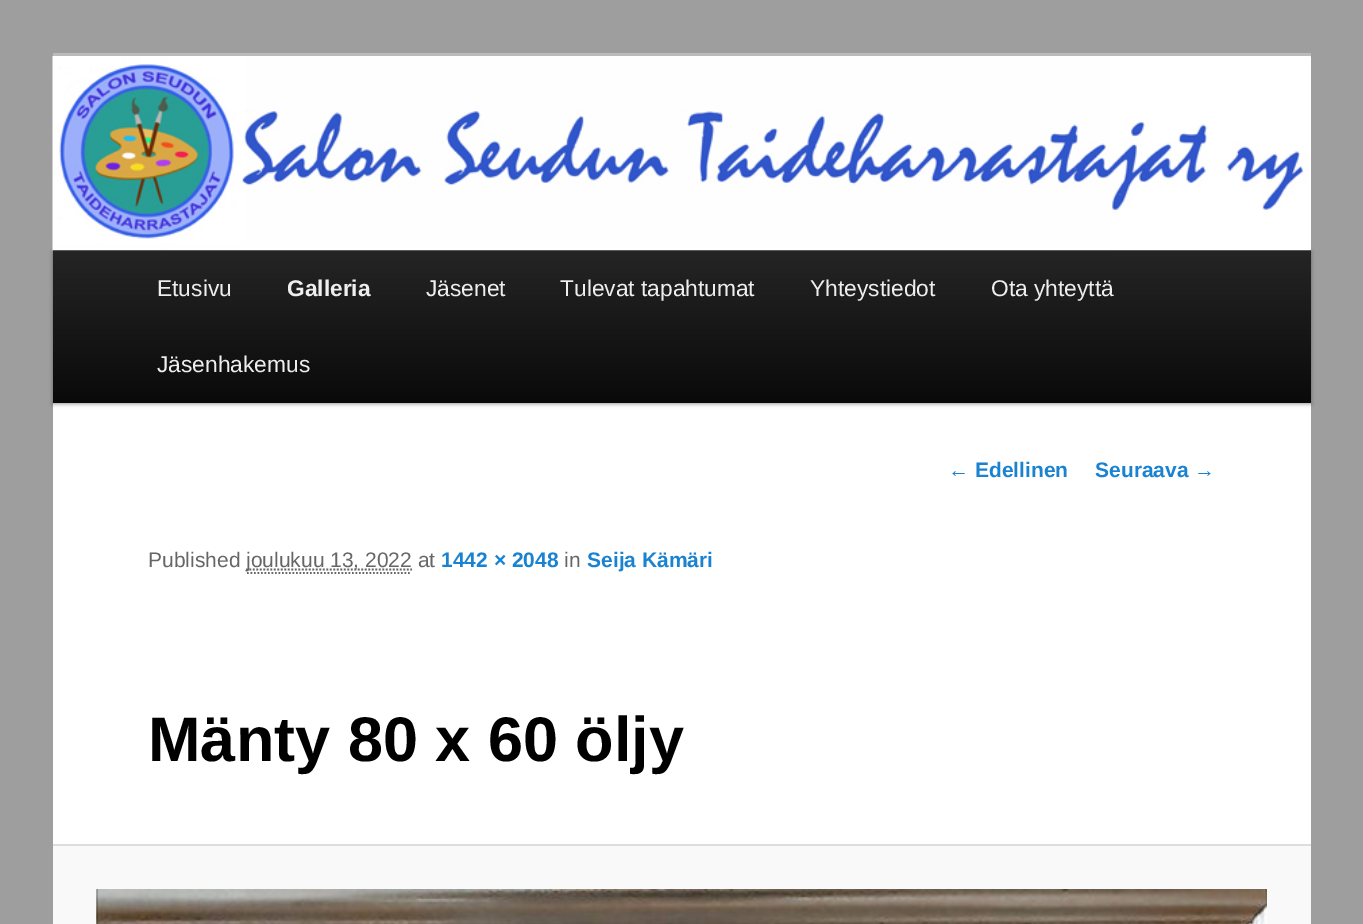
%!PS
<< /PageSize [1363 924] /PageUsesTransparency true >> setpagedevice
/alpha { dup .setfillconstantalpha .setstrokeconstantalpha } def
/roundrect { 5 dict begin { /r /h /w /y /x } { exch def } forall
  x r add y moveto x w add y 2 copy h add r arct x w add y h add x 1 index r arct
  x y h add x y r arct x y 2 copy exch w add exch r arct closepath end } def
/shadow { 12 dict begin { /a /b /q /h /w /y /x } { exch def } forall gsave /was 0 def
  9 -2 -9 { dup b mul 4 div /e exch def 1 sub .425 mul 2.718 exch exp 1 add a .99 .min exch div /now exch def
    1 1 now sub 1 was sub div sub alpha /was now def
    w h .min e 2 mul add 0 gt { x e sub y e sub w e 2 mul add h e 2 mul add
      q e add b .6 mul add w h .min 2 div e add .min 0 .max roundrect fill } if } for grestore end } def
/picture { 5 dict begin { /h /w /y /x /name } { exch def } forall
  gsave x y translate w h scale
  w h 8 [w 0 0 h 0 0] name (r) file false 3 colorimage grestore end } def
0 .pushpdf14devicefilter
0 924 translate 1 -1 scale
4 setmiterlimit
0.62 setgray
0 0 1363 924 rectfill
1 setgray
53 57 1258 787 rectfill
0.733 setgray
53 53 1258 4 rectfill
0 setgray
53 252 1258 152 0 2 0.4 shadow
gsave newpath 53 250 moveto 1311 250 lineto 1311 403 lineto 53 403 lineto closepath clip newpath
<< /ShadingType 2 /ColorSpace /DeviceRGB /Coords [682 250 682 403] /Extend [true true] /Function << /FunctionType 2 /Domain [0 1] /C0 [0.145 0.145 0.145] /C1 [0.039 0.039 0.039] /N 1 >> >> shfill grestore
(img1.rgb) 52 56 1259 195 picture
/LiberationSans-Regular [22.75 0 0 -22.75 0 0] selectfont
0.933 setgray
157 296 moveto (Etusivu) show
/LiberationSans-Bold [22.75 0 0 -22.75 0 0] selectfont
287 296 moveto (Galleria) show
/LiberationSans-Regular [22.75 0 0 -22.75 0 0] selectfont
426 296 moveto (Jäsenet) show
560 296 moveto (Tulevat tapahtumat) show
810 296 moveto (Yhteystiedot) show
991 296 moveto (Ota yhteyttä) show
157 372 moveto (Jäsenhakemus) show
/LiberationSans-Bold [21 0 0 -21 0 0] selectfont
0.098 0.51 0.82 setrgbcolor
948 477 moveto (← Edellinen) show
1095 477 moveto (Seuraava →) show
/LiberationSans-Regular [21 0 0 -21 0 0] selectfont
0.4 setgray
148 567 moveto (Published) show
1.8 setlinewidth
[1.75 1.75] 0 setdash
newpath 246 569.5 moveto 412 569.5 lineto stroke
246 567 moveto (joulukuu 13, 2022 at) show
newpath 247 573 moveto 411 573 lineto stroke
/LiberationSans-Bold [21 0 0 -21 0 0] selectfont
0.098 0.51 0.82 setrgbcolor
441 567 moveto (1442 × 2048) show
/LiberationSans-Regular [21 0 0 -21 0 0] selectfont
0.4 setgray
564 567 moveto (in) show
/LiberationSans-Bold [21 0 0 -21 0 0] selectfont
0.098 0.51 0.82 setrgbcolor
587 567 moveto (Seija Kämäri) show
/LiberationSans-Bold [63 0 0 -63 0 0] selectfont
0 setgray
148 761 moveto (Mänty 80 x 60 öljy) show
0.976 setgray
53 846 1258 78 rectfill
0.867 setgray
53 844 1258 2 rectfill
(img2.rgb) 96 889 1171 35 picture
.poppdf14devicefilter showpage
